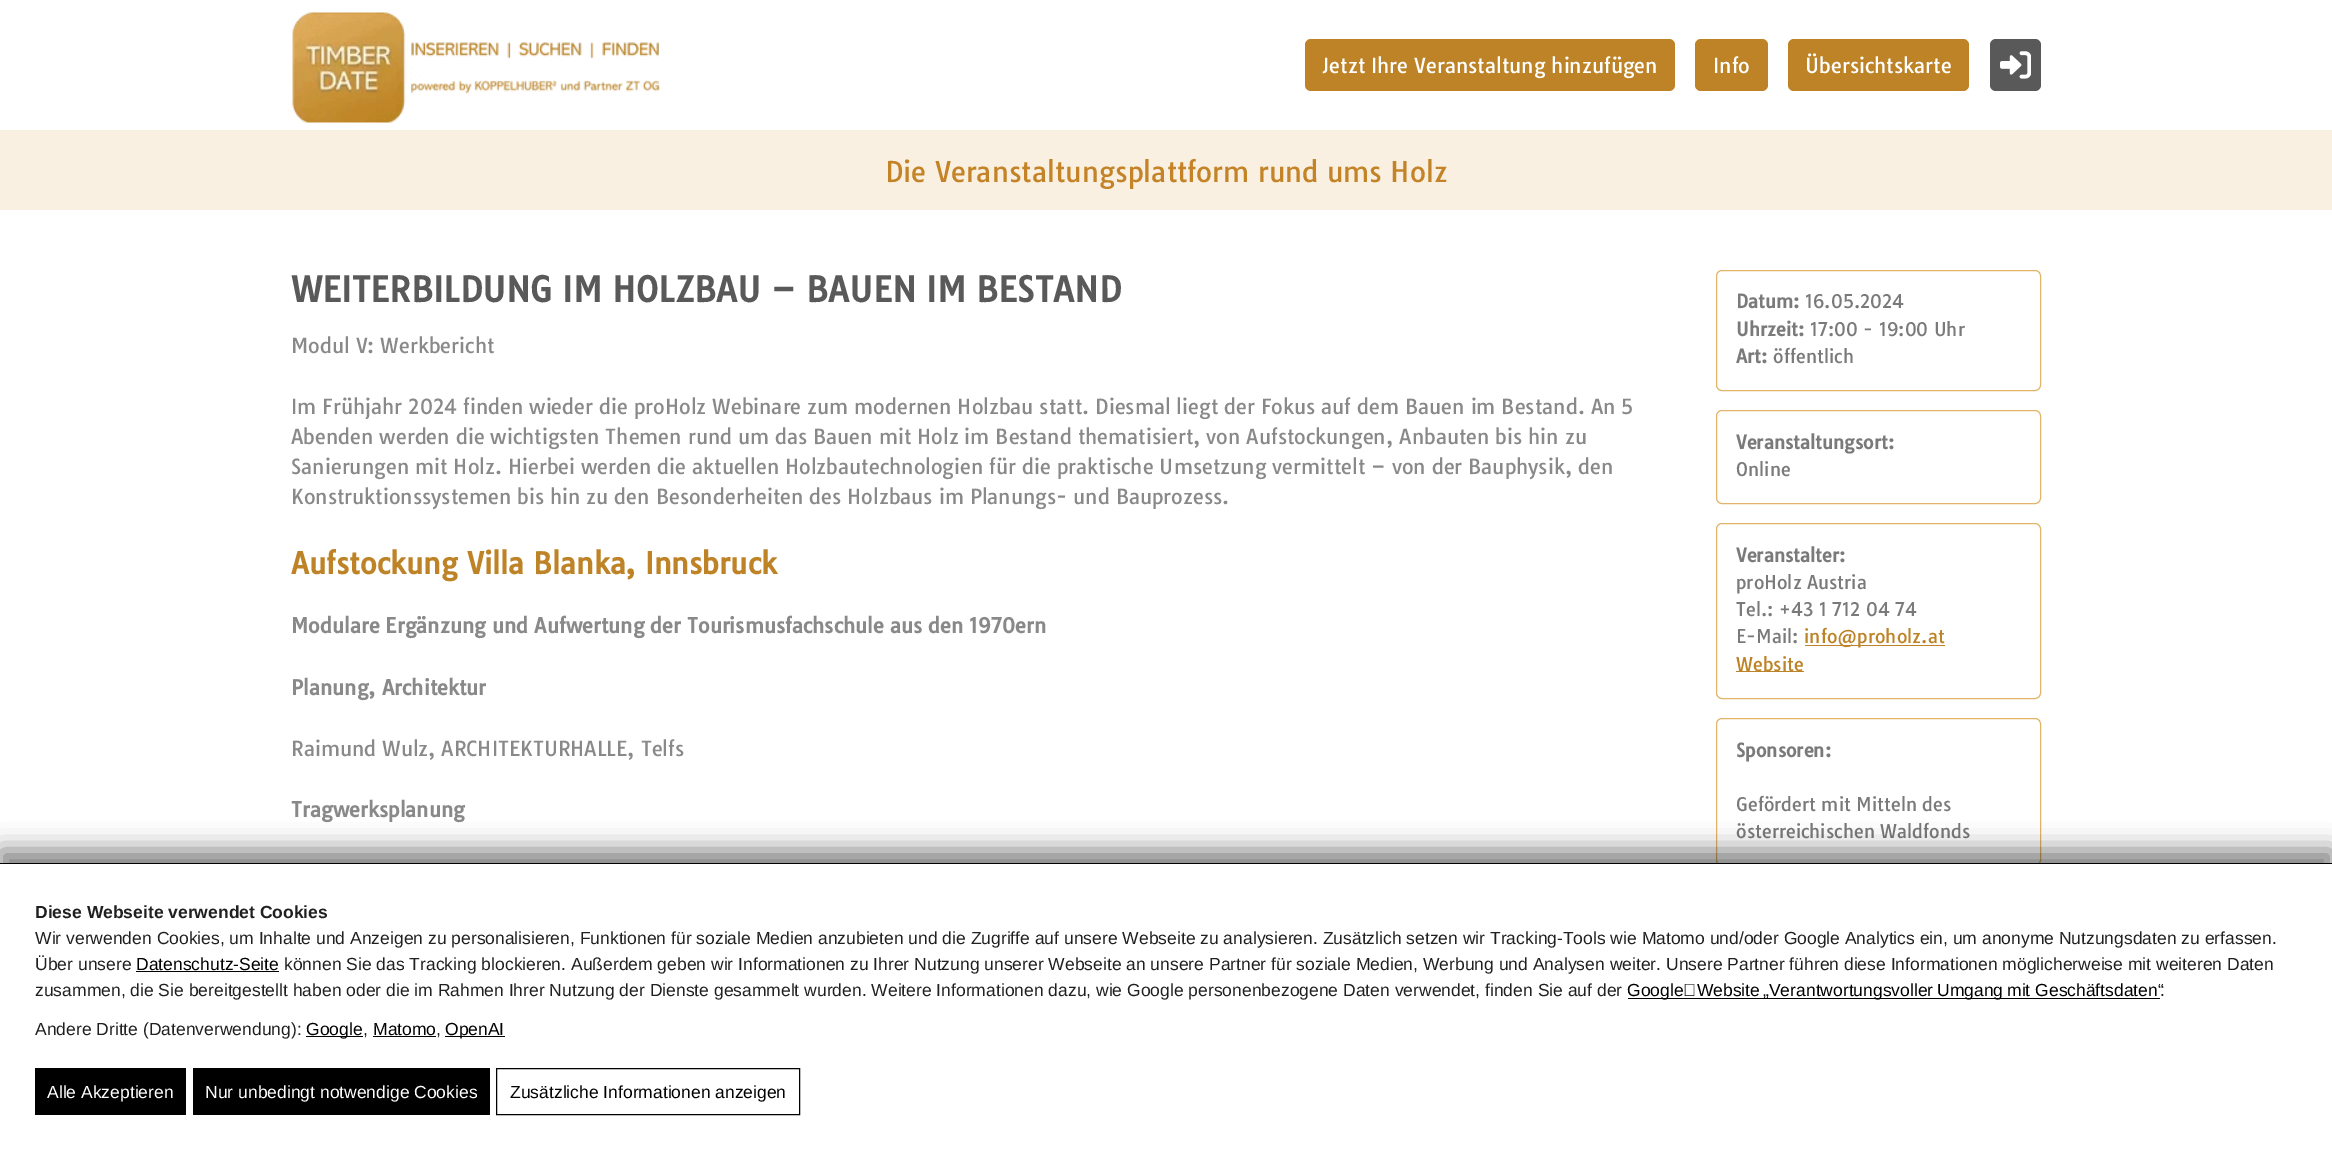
%!PS
<< /PageSize [2332 1149] /PageUsesTransparency true >> setpagedevice
/alpha { dup .setfillconstantalpha .setstrokeconstantalpha } def
/roundrect { 5 dict begin { /r /h /w /y /x } { exch def } forall
  x r add y moveto x w add y 2 copy h add r arct x w add y h add x 1 index r arct
  x y h add x y r arct x y 2 copy exch w add exch r arct closepath end } def
/shadow { 12 dict begin { /a /b /q /h /w /y /x } { exch def } forall gsave /was 0 def
  9 -2 -9 { dup b mul 4 div /e exch def 1 sub .425 mul 2.718 exch exp 1 add a .99 .min exch div /now exch def
    1 1 now sub 1 was sub div sub alpha /was now def
    w h .min e 2 mul add 0 gt { x e sub y e sub w e 2 mul add h e 2 mul add
      q e add b .6 mul add w h .min 2 div e add .min 0 .max roundrect fill } if } for grestore end } def
/picture { 5 dict begin { /h /w /y /x /name } { exch def } forall
  gsave x y translate w h scale
  w h 8 [w 0 0 h 0 0] name (r) file false 3 colorimage grestore end } def
0 .pushpdf14devicefilter
0 1149 translate 1 -1 scale
4 setmiterlimit
1 setgray
0 0 2332 1149 rectfill
(img1.rgb) 292 12 368 111 picture
0.741 0.514 0.149 setrgbcolor
1305 39 370 52 6 roundrect fill
/Tauri-Regular [20 0 0 -20 0 0] selectfont
1 setgray
1322 73 moveto (Jetzt Ihre Veranstaltung hinzufügen) show
0.741 0.514 0.149 setrgbcolor
1695 39 73 52 6 roundrect fill
1 setgray
1713 73 moveto (Info) show
0.741 0.514 0.149 setrgbcolor
1788 39 181 52 6 roundrect fill
1 setgray
1805 73 moveto (Übersichtskarte) show
0.349 setgray
1990 39 51 52 6 roundrect fill
(img2.rgb) 2000 51 31 28 picture
0.976 0.941 0.882 setrgbcolor
0 130 2332 80 rectfill
/Tauri-Regular [27.5 0 0 -27.5 0 0] selectfont
0.765 0.514 0.149 setrgbcolor
885 182 moveto (Die Veranstaltungsplattform rund ums Holz) show
/Tauri-Bold [33.75 0 0 -33.75 0 0] selectfont
0.349 setgray
291 302 moveto (WEITERBILDUNG IM HOLZBAU – BAUEN IM BESTAND) show
/Tauri-Regular [20 0 0 -20 0 0] selectfont
0.537 setgray
291 353 moveto (Modul V: Werkbericht) show
291 414 moveto (Im Frühjahr 2024 finden wieder die proHolz Webinare zum modernen Holzbau statt. Diesmal liegt der Fokus auf dem Bauen im Bestand. An 5) show
291 444 moveto (Abenden werden die wichtigsten Themen rund um das Bauen mit Holz im Bestand thematisiert, von Aufstockungen, Anbauten bis hin zu) show
291 474 moveto (Sanierungen mit Holz. Hierbei werden die aktuellen Holzbautechnologien für die praktische Umsetzung vermittelt – von der Bauphysik, den) show
291 504 moveto (Konstruktionssystemen bis hin zu den Besonderheiten des Holzbaus im Planungs- und Bauprozess.) show
/Tauri-Bold [28.75 0 0 -28.75 0 0] selectfont
0.741 0.514 0.149 setrgbcolor
291 574 moveto (Aufstockung Villa Blanka, Innsbruck) show
/Tauri-Bold [20 0 0 -20 0 0] selectfont
0.537 setgray
291 633 moveto (Modulare Ergänzung und Aufwertung der Tourismusfachschule aus den 1970ern) show
291 695 moveto (Planung, Architektur) show
/Tauri-Regular [20 0 0 -20 0 0] selectfont
291 756 moveto (Raimund Wulz, ARCHITEKTURHALLE, Telfs) show
/Tauri-Bold [20 0 0 -20 0 0] selectfont
291 817 moveto (Tragwerksplanung) show
0.89 0.71 0.416 setrgbcolor
1716.5 270.5 324 120 5.5 roundrect stroke
/Tauri-Bold [18.1 0 0 -18.1 0 0] selectfont
0.478 setgray
1736 308 moveto (Datum:) show
/Tauri-Regular [18.1 0 0 -18.1 0 0] selectfont
1805 308 moveto (16.05.2024) show
/Tauri-Bold [18.1 0 0 -18.1 0 0] selectfont
1736 336 moveto (Uhrzeit:) show
/Tauri-Regular [18.1 0 0 -18.1 0 0] selectfont
1810 336 moveto (17:00 - 19:00 Uhr) show
/Tauri-Bold [18.1 0 0 -18.1 0 0] selectfont
1736 363 moveto (Art:) show
/Tauri-Regular [18.1 0 0 -18.1 0 0] selectfont
1773 363 moveto (öffentlich) show
0.89 0.71 0.416 setrgbcolor
1716.5 410.5 324 93 5.5 roundrect stroke
/Tauri-Bold [18.1 0 0 -18.1 0 0] selectfont
0.478 setgray
1736 449 moveto (Veranstaltungsort:) show
/Tauri-Regular [18.1 0 0 -18.1 0 0] selectfont
1736 476 moveto (Online) show
0.89 0.71 0.416 setrgbcolor
1716.5 523.5 324 175 5.5 roundrect stroke
/Tauri-Bold [18.1 0 0 -18.1 0 0] selectfont
0.478 setgray
1736 562 moveto (Veranstalter:) show
/Tauri-Regular [18.1 0 0 -18.1 0 0] selectfont
1736 589 moveto (proHolz Austria) show
1736 616 moveto (Tel.: +43 1 712 04 74) show
1736 643 moveto (E-Mail:) show
0.741 0.514 0.149 setrgbcolor
1805 645 140 1 rectfill
1804 643 moveto (info@proholz.at) show
1736 671 68 1 rectfill
1736 671 moveto (Website) show
0.89 0.71 0.416 setrgbcolor
1716.5 718.5 324 147 5.5 roundrect stroke
/Tauri-Bold [18.1 0 0 -18.1 0 0] selectfont
0.478 setgray
1736 757 moveto (Sponsoren:) show
/Tauri-Regular [18.1 0 0 -18.1 0 0] selectfont
1736 811 moveto (Gefördert mit Mitteln des) show
1736 838 moveto (österreichischen Waldfonds) show
0 setgray
0 850 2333 288 0 12.5 0.5 shadow
1 setgray
0 864 2332 285 rectfill
0 setgray
0 863 2332 1 rectfill
/LiberationSans-Bold [17.5 0 0 -17.5 0 0] selectfont
0.125 setgray
35 918 moveto (Diese Webseite verwendet Cookies) show
/LiberationSans-Regular [17.5 0 0 -17.5 0 0] selectfont
35 944 moveto (Wir verwenden Cookies, um Inhalte und Anzeigen zu personalisieren, Funktionen für soziale Medien anzubieten und die Zugriffe auf unsere Webseite zu analysieren. Zusätzlich setzen wir Tracking-Tools wie Matomo und/oder Google Analytics ein, um anonyme Nutzungsdaten zu erfassen.) show
35 970 moveto (Über unsere) show
0 setgray
136 970 moveto (Datenschutz-Seite) show
136 971 143 1 rectfill
0.125 setgray
284 970 moveto (können Sie das Tracking blockieren. Außerdem geben wir Informationen zu Ihrer Nutzung unserer Webseite an unsere Partner für soziale Medien, Werbung und Analysen weiter. Unsere Partner führen diese Informationen möglicherweise mit weiteren Daten) show
35 996 moveto (zusammen, die Sie bereitgestellt haben oder die im Rahmen Ihrer Nutzung der Dienste gesammelt wurden. Weitere Informationen dazu, wie Google personenbezogene Daten verwendet, finden Sie auf der) show
0 setgray
1628 998 532 1 rectfill
1627 996 moveto (Google‑Website) show
1763 996 moveto („Verantwortungsvoller) show
1937 996 moveto (Umgang) show
2007 996 moveto (mit Geschäftsdaten“) show
0.125 setgray
2160 996 moveto (.) show
35 1035 moveto (Andere Dritte \(Datenverwendung\):) show
0 setgray
306 1036 57 1 rectfill
306 1035 moveto (Google) show
0.125 setgray
363 1035 moveto (,) show
0 setgray
373 1035 moveto (Matomo) show
373 1036 63 1 rectfill
0.125 setgray
436 1035 moveto (,) show
0 setgray
445 1036 60 1 rectfill
445 1035 moveto (OpenAI) show
35 1068 151 47 rectfill
1 setgray
47 1098 moveto (Alle Akzeptieren) show
0 setgray
193 1068 297 47 rectfill
1 setgray
205 1098 moveto (Nur unbedingt notwendige Cookies) show
0 setgray
496.5 1068.5 303 46 rectstroke
510 1098 moveto (Zusätzliche Informationen anzeigen) show
.poppdf14devicefilter showpage
